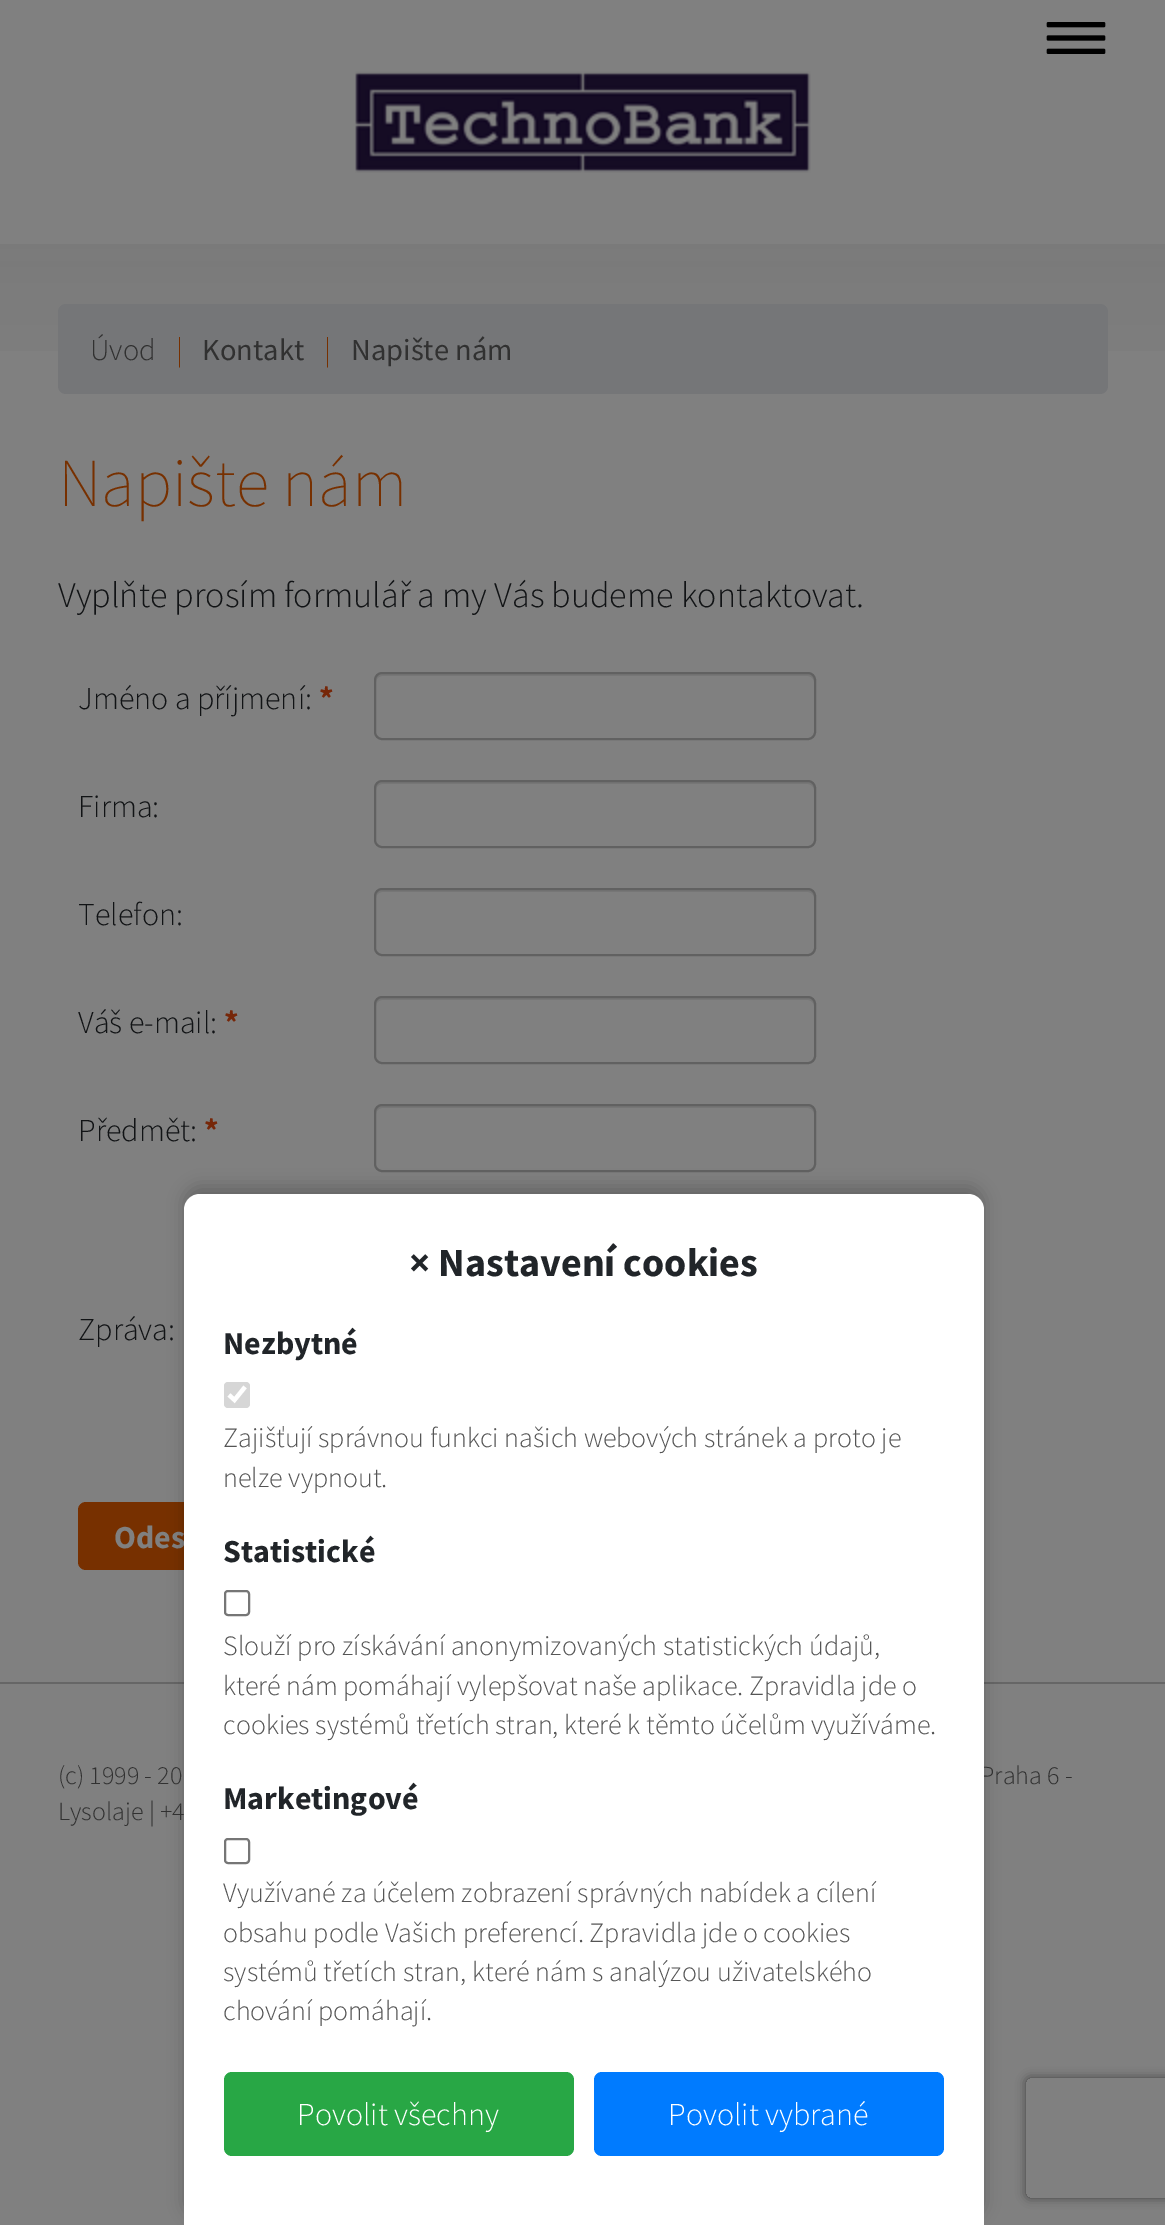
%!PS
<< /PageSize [1165 2225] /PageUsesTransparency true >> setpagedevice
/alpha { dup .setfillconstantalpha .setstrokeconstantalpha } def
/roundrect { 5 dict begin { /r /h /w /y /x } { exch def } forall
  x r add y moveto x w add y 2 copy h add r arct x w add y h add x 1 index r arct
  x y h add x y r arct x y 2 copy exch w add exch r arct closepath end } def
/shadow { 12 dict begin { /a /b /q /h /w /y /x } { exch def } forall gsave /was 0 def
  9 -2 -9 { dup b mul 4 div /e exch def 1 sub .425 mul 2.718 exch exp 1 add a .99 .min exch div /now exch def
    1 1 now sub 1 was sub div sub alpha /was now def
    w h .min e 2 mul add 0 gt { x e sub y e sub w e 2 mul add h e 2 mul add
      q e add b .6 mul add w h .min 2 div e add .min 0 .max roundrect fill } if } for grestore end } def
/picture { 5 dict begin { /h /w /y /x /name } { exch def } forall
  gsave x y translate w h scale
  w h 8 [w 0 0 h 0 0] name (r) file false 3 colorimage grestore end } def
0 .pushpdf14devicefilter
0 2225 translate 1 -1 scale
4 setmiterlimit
0.502 setgray
0 0 1165 2225 rectfill
(img1.rgb) 1046 22 60 32 picture
(img2.rgb) 355 71 456 102 picture
(img3.rgb) 0 244 1165 107 picture
0.459 0.463 0.471 setrgbcolor
58 304 1050 90 8 roundrect fill
/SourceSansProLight-Light [30.5 0 0 -30.5 0 0] selectfont
0.192 setgray
90 360 moveto (Úvod) show
0.467 0.188 0 setrgbcolor
176 360 moveto (|) show
/SourceSansPro-Regular [30.5 0 0 -30.5 0 0] selectfont
0.192 setgray
202 360 moveto (Kontakt) show
/SourceSansProLight-Light [30.5 0 0 -30.5 0 0] selectfont
0.467 0.188 0 setrgbcolor
324 360 moveto (|) show
/SourceSansPro-Regular [30.5 0 0 -30.5 0 0] selectfont
0.192 setgray
351 360 moveto (Napište nám) show
/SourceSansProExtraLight-ExtraLight [68.75 0 0 -68.75 0 0] selectfont
0.467 0.188 0 setrgbcolor
58 506 moveto (Napište nám) show
/SourceSansProLight-Light [36 0 0 -36 0 0] selectfont
0.067 0.075 0.082 setrgbcolor
58 607 moveto (Vyplňte prosím formulář a my Vás budeme kontaktovat.) show
/SourceSansProLight-Light [32 0 0 -32 0 0] selectfont
78 709 moveto (Jméno a příjmení:) show
/SourceSansPro-Bold [32 0 0 -32 0 0] selectfont
0.463 0.153 0.035 setrgbcolor
319 709 moveto (*) show
0.463 setgray
newpath 382 676 moveto 808 676 lineto 811 676 814 679 814 682 curveto 814 680 lineto 814 677 811 674 808 674 curveto 382 674 lineto 379 674 376 677 376 680 curveto 376 682 lineto 376 679 379 676 382 676 curveto closepath fill
0.38 setgray
2 setlinewidth
375 673 440 66 7 roundrect stroke
/SourceSansProLight-Light [32 0 0 -32 0 0] selectfont
0.067 0.075 0.082 setrgbcolor
78 817 moveto (Firma:) show
0.463 setgray
newpath 382 784 moveto 808 784 lineto 811 784 814 787 814 790 curveto 814 788 lineto 814 785 811 782 808 782 curveto 382 782 lineto 379 782 376 785 376 788 curveto 376 790 lineto 376 787 379 784 382 784 curveto closepath fill
0.38 setgray
375 781 440 66 7 roundrect stroke
0.067 0.075 0.082 setrgbcolor
78 925 moveto (Telefon:) show
0.463 setgray
newpath 382 892 moveto 808 892 lineto 811 892 814 895 814 898 curveto 814 896 lineto 814 893 811 890 808 890 curveto 382 890 lineto 379 890 376 893 376 896 curveto 376 898 lineto 376 895 379 892 382 892 curveto closepath fill
0.38 setgray
375 889 440 66 7 roundrect stroke
0.067 0.075 0.082 setrgbcolor
78 1033 moveto (Váš e-mail:) show
/SourceSansPro-Bold [32 0 0 -32 0 0] selectfont
0.463 0.153 0.035 setrgbcolor
224 1033 moveto (*) show
0.463 setgray
newpath 382 1000 moveto 808 1000 lineto 811 1000 814 1003 814 1006 curveto 814 1004 lineto 814 1001 811 998 808 998 curveto 382 998 lineto 379 998 376 1001 376 1004 curveto 376 1006 lineto 376 1003 379 1000 382 1000 curveto closepath fill
0.38 setgray
375 997 440 66 7 roundrect stroke
/SourceSansProLight-Light [32 0 0 -32 0 0] selectfont
0.067 0.075 0.082 setrgbcolor
78 1141 moveto (Předmět:) show
/SourceSansPro-Bold [32 0 0 -32 0 0] selectfont
0.463 0.153 0.035 setrgbcolor
204 1141 moveto (*) show
0.463 setgray
newpath 382 1108 moveto 808 1108 lineto 811 1108 814 1111 814 1114 curveto 814 1112 lineto 814 1109 811 1106 808 1106 curveto 382 1106 lineto 379 1106 376 1109 376 1112 curveto 376 1114 lineto 376 1111 379 1108 382 1108 curveto closepath fill
0.38 setgray
375 1105 440 66 7 roundrect stroke
/SourceSansProLight-Light [32 0 0 -32 0 0] selectfont
0.067 0.075 0.082 setrgbcolor
78 1340 moveto (Zpráva:) show
0.467 0.188 0 setrgbcolor
78 1502 182 68 8 roundrect fill
/SourceSansPro-Bold [32 0 0 -32 0 0] selectfont
0.502 setgray
114 1548 moveto (Odes) show
0.4 setgray
0 1682 1165 2 rectfill
0 setgray
184 1186 800 1032 16 8 0.2 shadow
/SourceSansProLight-Light [26 0 0 -26 0 0] selectfont
0.192 setgray
980 1784 moveto (Praha 6 -) show
58 1820 moveto (Lysolaje | +4) show
1 setgray
newpath 200 1194 moveto 968 1194 lineto 977 1194 984 1201 984 1210 curveto 984 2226 lineto 184 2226 lineto 184 1210 lineto 184 1201 191 1194 200 1194 curveto closepath fill
/SourceSansPro-Bold [40 0 0 -40 0 0] selectfont
0.129 0.145 0.161 setrgbcolor
409 1276 moveto (× Nastavení cookies) show
/SourceSansPro-Bold [32 0 0 -32 0 0] selectfont
223 1354 moveto (Nezbytné) show
0.839 setgray
224 1382 26 26 4 roundrect fill
1 setgray
4.2 setlinewidth
newpath 229 1395 moveto 234.5 1400 lineto 245 1387 lineto stroke
/SourceSansProLight-Light [28 0 0 -28 0 0] selectfont
0.333 setgray
223 1447 moveto (Zajišťují správnou funkci našich webových stránek a proto je) show
223 1487 moveto (nelze vypnout.) show
/SourceSansPro-Bold [32 0 0 -32 0 0] selectfont
0.129 0.145 0.161 setrgbcolor
223 1562 moveto (Statistické) show
0.463 setgray
2 setlinewidth
225 1591 24 24 3 roundrect stroke
/SourceSansProLight-Light [28 0 0 -28 0 0] selectfont
0.333 setgray
223 1655 moveto (Slouží pro získávání anonymizovaných statistických údajů,) show
223 1695 moveto (které nám pomáhají vylepšovat naše aplikace. Zpravidla jde o) show
223 1734 moveto (cookies systémů třetích stran, které k těmto účelům využíváme.) show
/SourceSansPro-Bold [32 0 0 -32 0 0] selectfont
0.129 0.145 0.161 setrgbcolor
223 1809 moveto (Marketingové) show
0.463 setgray
225 1839 24 24 3 roundrect stroke
/SourceSansProLight-Light [28 0 0 -28 0 0] selectfont
0.333 setgray
223 1902 moveto (Využívané za účelem zobrazení správných nabídek a cílení) show
223 1942 moveto (obsahu podle Vašich preferencí. Zpravidla jde o cookies) show
223 1981 moveto (systémů třetích stran, které nám s analýzou uživatelského) show
223 2020 moveto (chování pomáhají.) show
0.157 0.655 0.271 setrgbcolor
224 2072 350 84 8 roundrect fill
/SourceSansProLight-Light [32 0 0 -32 0 0] selectfont
1 setgray
297 2125 moveto (Povolit všechny) show
0 0.482 1 setrgbcolor
594 2072 350 84 8 roundrect fill
1 setgray
668 2125 moveto (Povolit vybrané) show
/SourceSansProLight-Light [26 0 0 -26 0 0] selectfont
0.192 setgray
58 1784 moveto (\(c\) 1999 - 20) show
gsave
newpath 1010 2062 moveto 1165 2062 lineto 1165 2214 lineto 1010 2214 lineto closepath 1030 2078 moveto 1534 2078 lineto 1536 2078 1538 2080 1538 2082 curveto 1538 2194 lineto 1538 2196 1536 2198 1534 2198 curveto 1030 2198 lineto 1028 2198 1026 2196 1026 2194 curveto 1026 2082 lineto 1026 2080 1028 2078 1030 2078 curveto closepath eoclip newpath
0.251 setgray
1026 2078 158 120 4 5 1 shadow
grestore
.poppdf14devicefilter showpage
